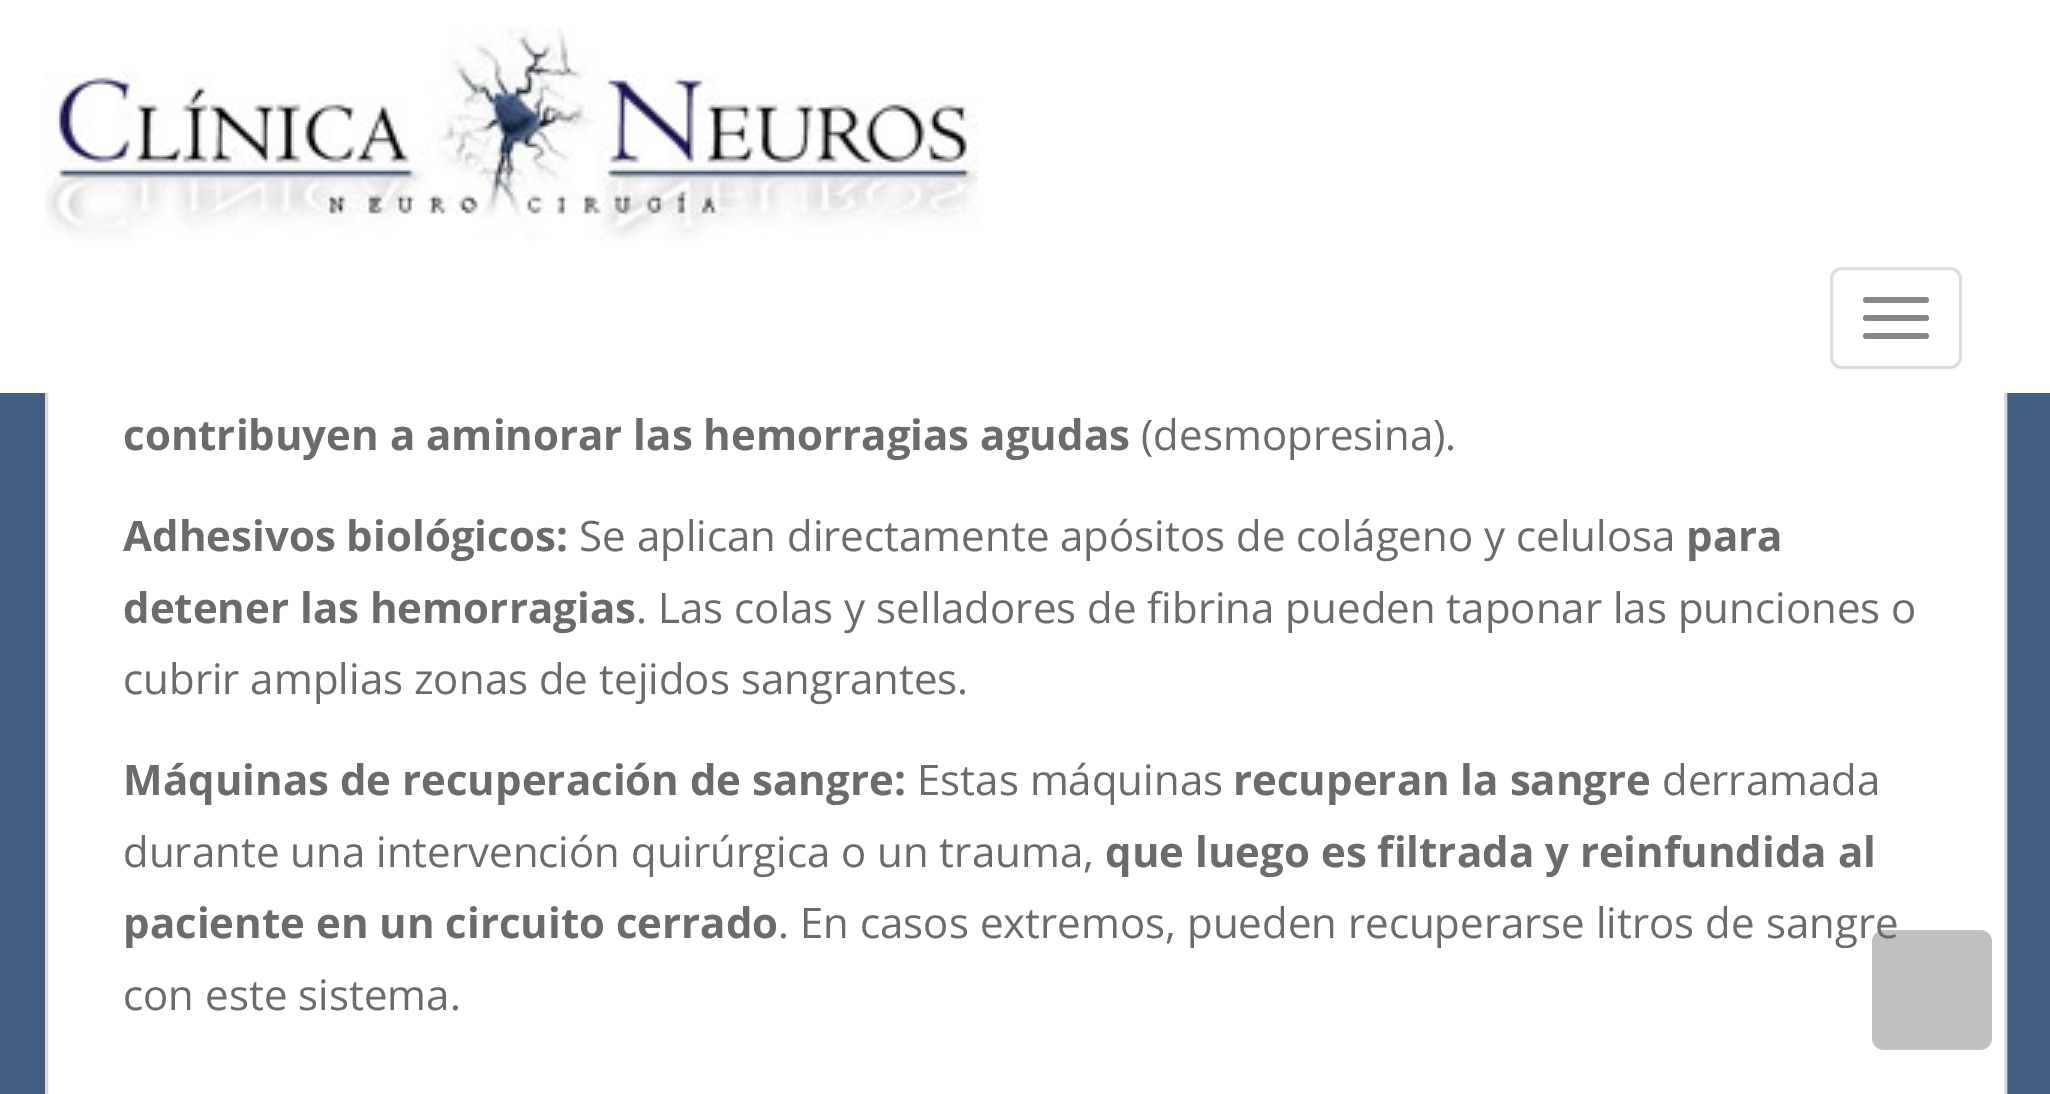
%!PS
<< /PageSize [2050 1094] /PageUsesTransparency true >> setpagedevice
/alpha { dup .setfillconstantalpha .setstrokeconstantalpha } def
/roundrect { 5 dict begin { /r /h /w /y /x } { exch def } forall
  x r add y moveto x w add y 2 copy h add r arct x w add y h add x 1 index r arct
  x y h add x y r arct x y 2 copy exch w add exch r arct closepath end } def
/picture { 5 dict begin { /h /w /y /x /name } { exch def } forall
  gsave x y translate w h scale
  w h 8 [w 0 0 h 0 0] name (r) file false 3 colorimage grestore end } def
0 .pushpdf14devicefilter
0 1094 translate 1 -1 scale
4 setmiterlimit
0.267 0.369 0.51 setrgbcolor
0 0 2050 1094 rectfill
1 setgray
48 393 1956 701 rectfill
0.855 setgray
3 setlinewidth
46.5 -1.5 1959 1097 rectstroke
1 setgray
0 0 2050 393 rectfill
(img1.rgb) 45 25 933 216 picture
0.867 setgray
1831.5 268.5 129 99 10.5 roundrect stroke
0.533 setgray
1863 297 66 6 3 roundrect fill
1863 315 66 6 3 roundrect fill
1863 333 66 6 3 roundrect fill
/OpenSans-Bold [42 0 0 -42 0 0] selectfont
0.42 setgray
123 450 moveto (contribuyen a aminorar las hemorragias agudas) show
/OpenSans-Regular [42 0 0 -42 0 0] selectfont
1141 450 moveto (\(desmopresina\).) show
/OpenSans-Bold [42 0 0 -42 0 0] selectfont
123 551 moveto (Adhesivos biológicos:) show
/OpenSans-Regular [42 0 0 -42 0 0] selectfont
579 551 moveto (Se aplican directamente apósitos de colágeno y celulosa) show
/OpenSans-Bold [42 0 0 -42 0 0] selectfont
1686 551 moveto (para) show
123 623 moveto (detener las hemorragias) show
/OpenSans-Regular [42 0 0 -42 0 0] selectfont
636 623 moveto (. Las colas y selladores de fibrina pueden taponar las punciones o) show
123 694 moveto (cubrir amplias zonas de tejidos sangrantes.) show
/OpenSans-Bold [42 0 0 -42 0 0] selectfont
123 795 moveto (Máquinas de recuperación de sangre:) show
/OpenSans-Regular [42 0 0 -42 0 0] selectfont
917 795 moveto (Estas máquinas) show
/OpenSans-Bold [42 0 0 -42 0 0] selectfont
1233 795 moveto (recuperan la sangre) show
/OpenSans-Regular [42 0 0 -42 0 0] selectfont
1662 795 moveto (derramada) show
123 867 moveto (durante una intervención quirúrgica o un trauma,) show
/OpenSans-Bold [42 0 0 -42 0 0] selectfont
1105 867 moveto (que luego es filtrada y reinfundida al) show
123 938 moveto (paciente en un circuito cerrado) show
/OpenSans-Regular [42 0 0 -42 0 0] selectfont
778 938 moveto (. En casos extremos, pueden recuperarse litros de sangre) show
123 1010 moveto (con este sistema.) show
0.4 alpha
0.392 setgray
1872 930 120 120 12 roundrect fill
.poppdf14devicefilter showpage
